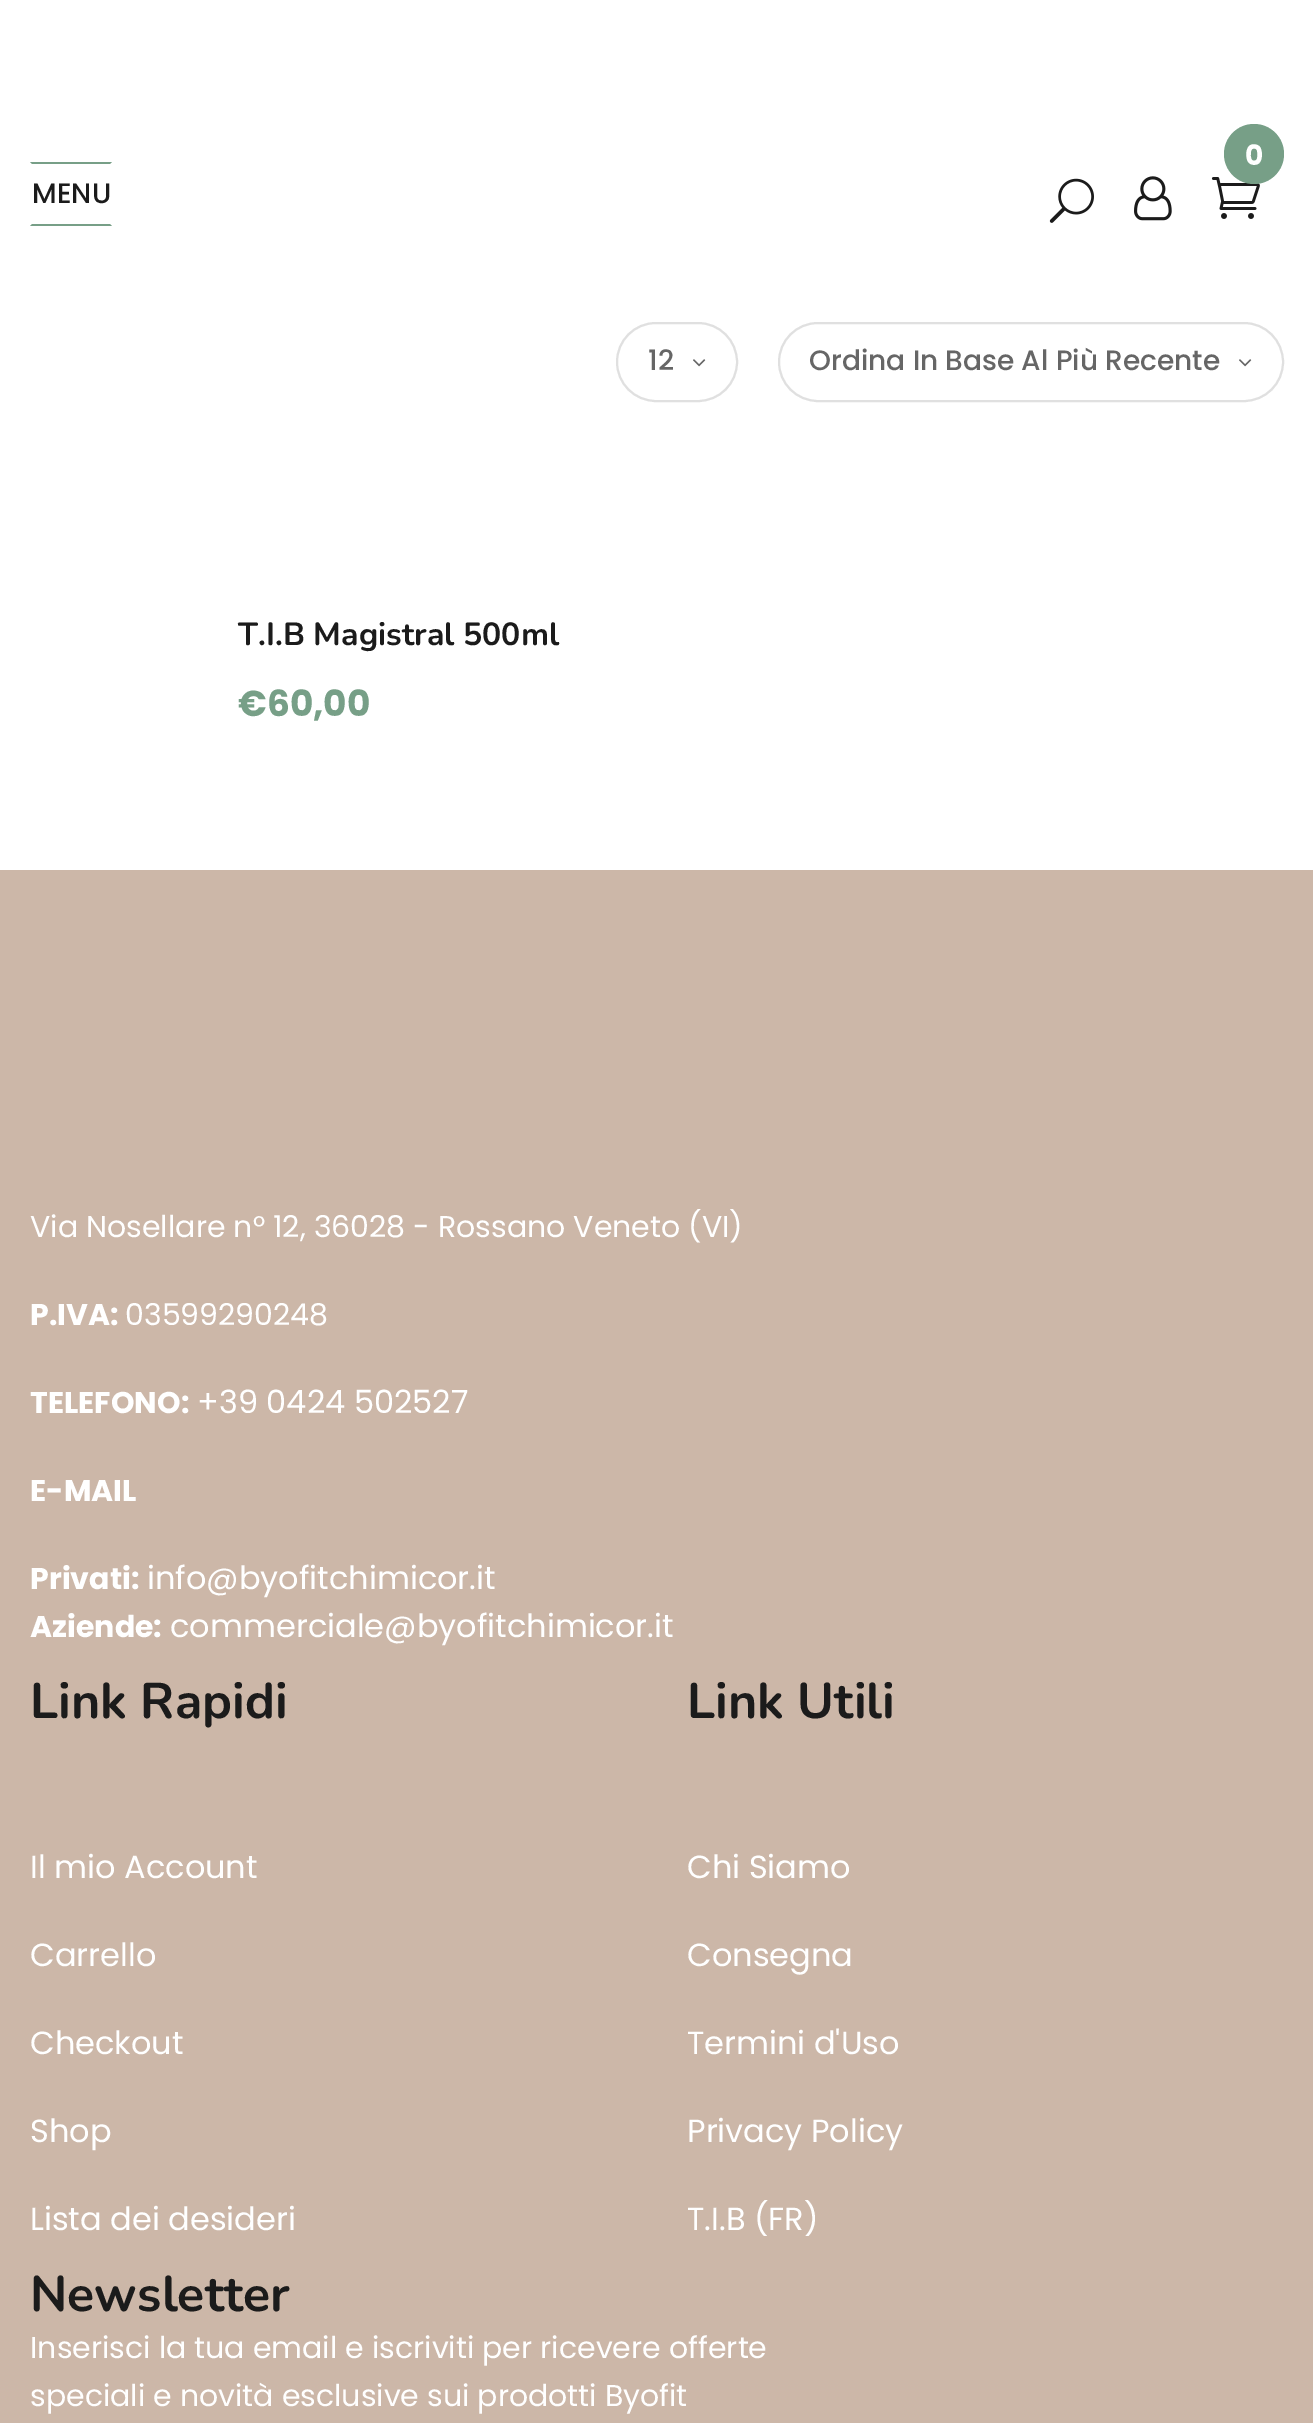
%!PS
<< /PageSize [1313 2423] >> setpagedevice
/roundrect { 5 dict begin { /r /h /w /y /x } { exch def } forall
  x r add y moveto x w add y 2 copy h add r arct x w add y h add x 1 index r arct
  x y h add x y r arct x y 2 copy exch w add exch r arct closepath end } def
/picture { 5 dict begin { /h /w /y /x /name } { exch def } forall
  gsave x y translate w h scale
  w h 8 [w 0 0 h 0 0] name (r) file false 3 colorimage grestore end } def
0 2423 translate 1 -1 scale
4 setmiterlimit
1 setgray
0 0 1313 2423 rectfill
(img1.rgb) 1211 177 49 42 picture
0.467 0.624 0.529 setrgbcolor
newpath 1254 154 30 0 360 arc closepath fill
/Poppins-Bold [28 0 0 -28 0 0] selectfont
1 setgray
1245 165 moveto (0) show
(img2.rgb) 1049 178 45 45 picture
(img3.rgb) 1134 176 38 45 picture
0.467 0.624 0.529 setrgbcolor
newpath 30 162 moveto 112 162 lineto 110 164 lineto 32 164 lineto closepath fill
newpath 112 226 moveto 30 226 lineto 32 224 lineto 110 224 lineto closepath fill
/Poppins-Medium [28 0 0 -28 0 0] selectfont
0.106 setgray
32 203 moveto (MENU) show
0.878 setgray
2 setlinewidth
617 323 120 78 39 roundrect stroke
0.4 setgray
648 370 moveto (12) show
(img4.rgb) 693 359 13 8 picture
0.878 setgray
779 323 504 78 39 roundrect stroke
0.4 setgray
809 370 moveto (Ordina In Base Al Più Recente) show
(img4.rgb) 1239 359 13 8 picture
/Nunito-Bold [32 0 0 -32 0 0] selectfont
0.106 setgray
238 645 moveto (T.I.B Magistral 500ml) show
/Poppins-Bold [36 0 0 -36 0 0] selectfont
0.467 0.624 0.529 setrgbcolor
238 716 moveto (€60,00) show
0.8 0.718 0.659 setrgbcolor
0 870 1313 1553 rectfill
/Poppins-Regular [30 0 0 -30 0 0] selectfont
1 setgray
30 1237 moveto (Via Nosellare n° 12, 36028 - Rossano Veneto \(VI\)) show
/Poppins-Bold [30 0 0 -30 0 0] selectfont
30 1325 moveto (P.IVA:) show
/Poppins-Regular [30 0 0 -30 0 0] selectfont
125 1325 moveto (03599290248) show
/Poppins-Bold [30 0 0 -30 0 0] selectfont
30 1413 moveto (TELEFONO:) show
/Poppins-Regular [32 0 0 -32 0 0] selectfont
197 1413 moveto (+39 0424 502527) show
/Poppins-Bold [30 0 0 -30 0 0] selectfont
30 1501 moveto (E-MAIL) show
30 1589 moveto (Privati:) show
/Poppins-Regular [32 0 0 -32 0 0] selectfont
147 1589 moveto (info@byofitchimicor.it) show
/Poppins-Bold [30 0 0 -30 0 0] selectfont
30 1637 moveto (Aziende:) show
/Poppins-Regular [32 0 0 -32 0 0] selectfont
170 1637 moveto (commerciale@byofitchimicor.it) show
/Nunito-Bold [50 0 0 -50 0 0] selectfont
0.106 setgray
30 1718 moveto (Link Rapidi) show
/Poppins-Regular [32 0 0 -32 0 0] selectfont
1 setgray
30 1878 moveto (Il mio Account) show
30 1966 moveto (Carrello) show
30 2054 moveto (Checkout) show
30 2142 moveto (Shop) show
30 2230 moveto (Lista dei desideri) show
/Nunito-Bold [50 0 0 -50 0 0] selectfont
0.106 setgray
687 1718 moveto (Link Utili) show
/Poppins-Regular [32 0 0 -32 0 0] selectfont
1 setgray
687 1878 moveto (Chi Siamo) show
687 1966 moveto (Consegna) show
687 2054 moveto (Termini d'Uso) show
687 2142 moveto (Privacy Policy) show
687 2230 moveto (T.I.B \(FR\)) show
/Nunito-Bold [50 0 0 -50 0 0] selectfont
0.106 setgray
30 2311 moveto (Newsletter) show
/Poppins-Regular [30 0 0 -30 0 0] selectfont
1 setgray
30 2358 moveto (Inserisci la tua email e iscriviti per ricevere offerte) show
30 2406 moveto (speciali e novità esclusive sui prodotti Byofit) show
showpage
